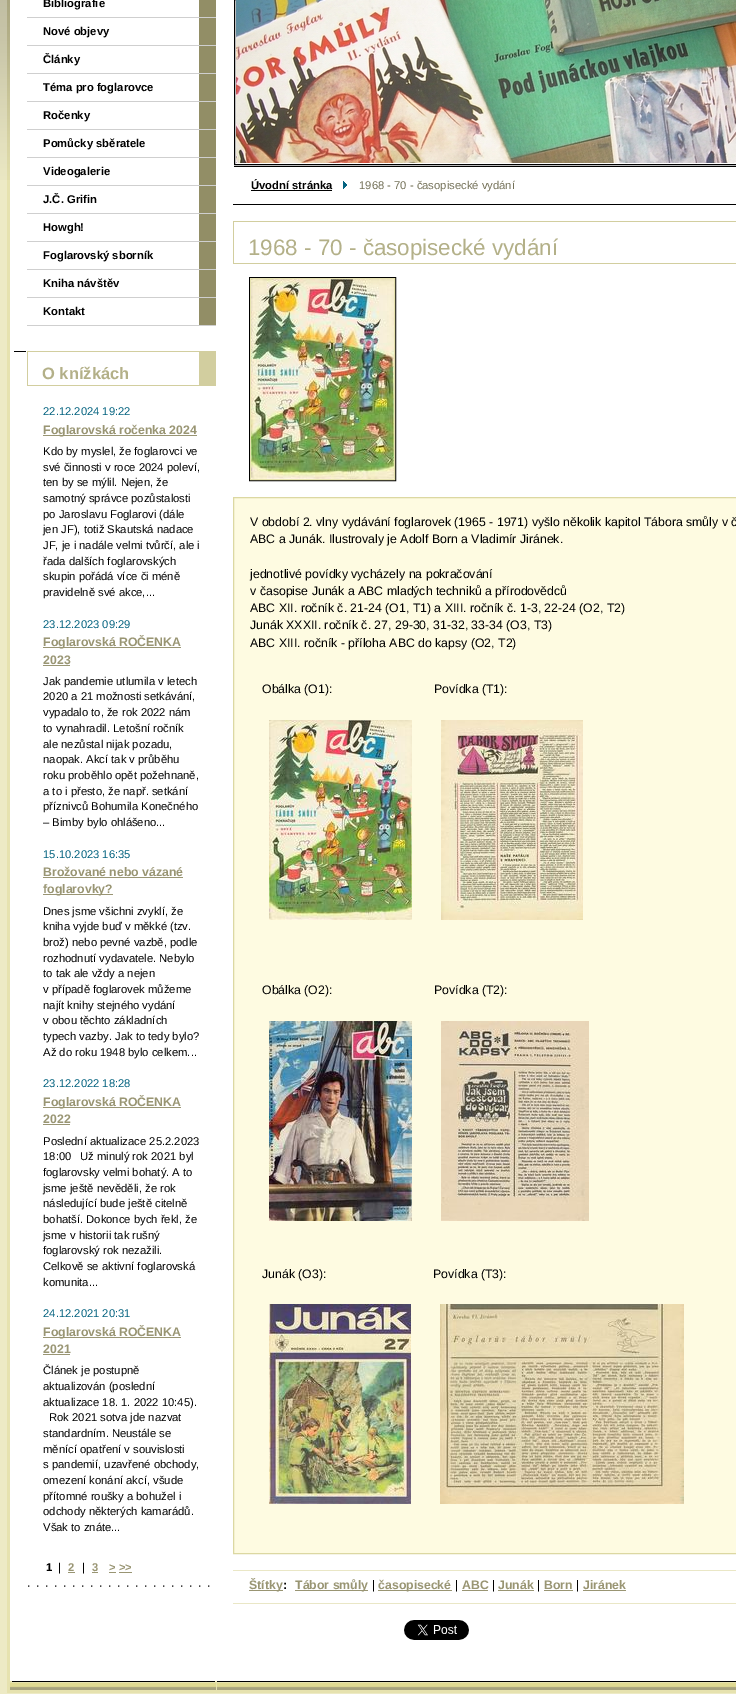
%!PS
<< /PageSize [736 1694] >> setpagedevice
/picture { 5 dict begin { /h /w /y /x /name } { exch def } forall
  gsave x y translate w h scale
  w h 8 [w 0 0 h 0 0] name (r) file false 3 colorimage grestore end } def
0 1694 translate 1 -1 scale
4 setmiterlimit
0.929 0.918 0.773 setrgbcolor
0 0 736 1694 rectfill
(img1.rgb) 7 0 729 1681 picture
(img2.rgb) 0 0 10 180 picture
0.573 0.557 0.4 setrgbcolor
199 0 17 325 rectfill
0.812 setgray
27 17 189 1 rectfill
/LiberationSans-Bold [11.25 0 0 -11.25 0 0] selectfont
0 setgray
43 7 moveto (Bibliografie) show
0.812 setgray
27 45 189 1 rectfill
0 setgray
43 35 moveto (Nové objevy) show
0.812 setgray
27 73 189 1 rectfill
0 setgray
43 63 moveto (Články) show
0.812 setgray
27 101 189 1 rectfill
0 setgray
43 91 moveto (Téma pro foglarovce) show
0.812 setgray
27 129 189 1 rectfill
0 setgray
43 119 moveto (Ročenky) show
0.812 setgray
27 157 189 1 rectfill
0 setgray
43 147 moveto (Pomůcky sběratele) show
0.812 setgray
27 185 189 1 rectfill
0 setgray
43 175 moveto (Videogalerie) show
0.812 setgray
27 213 189 1 rectfill
0 setgray
43 203 moveto (J.Č. Grifin) show
0.812 setgray
27 241 189 1 rectfill
0 setgray
43 231 moveto (Howgh!) show
0.812 setgray
27 269 189 1 rectfill
0 setgray
43 259 moveto (Foglarovský sborník) show
0.812 setgray
27 297 189 1 rectfill
0 setgray
43 287 moveto (Kniha návštěv) show
0.812 setgray
27 325 189 1 rectfill
0 setgray
43 315 moveto (Kontakt) show
14 351 12 1 rectfill
0.824 0.808 0.624 setrgbcolor
27 351 172 1 rectfill
199 351 17 34 rectfill
27 385 189 1 rectfill
27 351 1 35 rectfill
/LiberationSans-Bold [16.5 0 0 -16.5 0 0] selectfont
0.702 0.69 0.533 setrgbcolor
42 379 moveto (O knížkách) show
/LiberationSans-Regular [11.25 0 0 -11.25 0 0] selectfont
0.016 0.388 0.502 setrgbcolor
43 415 moveto (22.12.2024 19:22) show
0.6 0.584 0.451 setrgbcolor
43 435 154 1 rectfill
/LiberationSans-Bold [12.3 0 0 -12.3 0 0] selectfont
43 434 moveto (Foglarovská ročenka 2024) show
/LiberationSans-Regular [11.25 0 0 -11.25 0 0] selectfont
0 setgray
43 455 moveto (Kdo by myslel, že foglarovci ve) show
43 471 moveto (své činnosti v roce 2024 poleví,) show
43 486 moveto (ten by se mýlil. Nejen, že) show
43 502 moveto (samotný správce pozůstalosti) show
43 518 moveto (po Jaroslavu Foglarovi \(dále) show
43 533 moveto (jen JF\), totiž Skautská nadace) show
43 549 moveto (JF, je i nadále velmi tvůrčí, ale i) show
43 565 moveto (řada dalších foglarovských) show
43 580 moveto (skupin pořádá více či méně) show
43 596 moveto (pravidelně své akce,...) show
0.016 0.388 0.502 setrgbcolor
43 628 moveto (23.12.2023 09:29) show
0.6 0.584 0.451 setrgbcolor
43 647 138 1 rectfill
/LiberationSans-Bold [12.3 0 0 -12.3 0 0] selectfont
43 646 moveto (Foglarovská ROČENKA) show
43 664 moveto (2023) show
43 665 27 1 rectfill
/LiberationSans-Regular [11.25 0 0 -11.25 0 0] selectfont
0 setgray
43 685 moveto (Jak pandemie utlumila v letech) show
43 700 moveto (2020 a 21 možnosti setkávání,) show
43 716 moveto (vypadalo to, že rok 2022 nám) show
43 732 moveto (to vynahradil. Letošní ročník) show
43 748 moveto (ale nezůstal nijak pozadu,) show
43 763 moveto (naopak. Akcí tak v průběhu) show
43 779 moveto (roku proběhlo opět požehnaně,) show
43 795 moveto (a to i přesto, že např. setkání) show
43 810 moveto (příznivců Bohumila Konečného) show
43 826 moveto (– Bimby bylo ohlášeno...) show
0.016 0.388 0.502 setrgbcolor
43 858 moveto (15.10.2023 16:35) show
/LiberationSans-Bold [12.3 0 0 -12.3 0 0] selectfont
0.6 0.584 0.451 setrgbcolor
43 876 moveto (Brožované nebo vázané) show
43 877 140 1 rectfill
43 894 70 1 rectfill
43 893 moveto (foglarovky?) show
/LiberationSans-Regular [11.25 0 0 -11.25 0 0] selectfont
0 setgray
43 915 moveto (Dnes jsme všichni zvyklí, že) show
43 930 moveto (kniha vyjde buď v měkké \(tzv.) show
43 946 moveto (brož\) nebo pevné vazbě, podle) show
43 962 moveto (rozhodnutí vydavatele. Nebylo) show
43 977 moveto (to tak ale vždy a nejen) show
43 993 moveto (v případě foglarovek můžeme) show
43 1009 moveto (najít knihy stejného vydání) show
43 1024 moveto (v obou těchto základních) show
43 1040 moveto (typech vazby. Jak to tedy bylo?) show
43 1056 moveto (Až do roku 1948 bylo celkem...) show
0.016 0.388 0.502 setrgbcolor
43 1087 moveto (23.12.2022 18:28) show
0.6 0.584 0.451 setrgbcolor
43 1107 138 1 rectfill
/LiberationSans-Bold [12.3 0 0 -12.3 0 0] selectfont
43 1106 moveto (Foglarovská ROČENKA) show
43 1123 moveto (2022) show
43 1124 27 1 rectfill
/LiberationSans-Regular [11.25 0 0 -11.25 0 0] selectfont
0 setgray
43 1145 moveto (Poslední aktualizace 25.2.2023) show
43 1160 moveto (18:00) show
80 1160 moveto (Už minulý rok 2021 byl) show
43 1176 moveto (foglarovsky velmi bohatý. A to) show
43 1192 moveto (jsme ještě nevěděli, že rok) show
43 1207 moveto (následující bude ještě citelně) show
43 1223 moveto (bohatší. Dokonce bych řekl, že) show
43 1239 moveto (jsme v historii tak rušný) show
43 1254 moveto (foglarovský rok nezažili.) show
43 1270 moveto (Celkově se aktivní foglarovská) show
43 1286 moveto (komunita...) show
0.016 0.388 0.502 setrgbcolor
43 1317 moveto (24.12.2021 20:31) show
0.6 0.584 0.451 setrgbcolor
43 1337 138 1 rectfill
/LiberationSans-Bold [12.3 0 0 -12.3 0 0] selectfont
43 1336 moveto (Foglarovská ROČENKA) show
43 1353 moveto (2021) show
43 1354 27 1 rectfill
/LiberationSans-Regular [11.25 0 0 -11.25 0 0] selectfont
0 setgray
43 1374 moveto (Článek je postupně) show
43 1390 moveto (aktualizován \(poslední) show
43 1406 moveto (aktualizace 18. 1. 2022 10:45\).) show
49 1421 moveto (Rok 2021 sotva jde nazvat) show
43 1437 moveto (standardním. Neustále se) show
43 1453 moveto (měnící opatření v souvislosti) show
43 1468 moveto (s pandemií, uzavřené obchody,) show
43 1484 moveto (omezení konání akcí, všude) show
43 1500 moveto (přítomné roušky a bohužel i) show
43 1515 moveto (odchody některých kamarádů.) show
43 1531 moveto (Však to znáte...) show
(img3.rgb) 28 1585 182 2 picture
/LiberationSans-Bold [11.25 0 0 -11.25 0 0] selectfont
46 1571 moveto (1) show
/LiberationSans-Regular [11.25 0 0 -11.25 0 0] selectfont
58 1571 moveto (|) show
/LiberationSans-Bold [11.25 0 0 -11.25 0 0] selectfont
0.6 0.584 0.451 setrgbcolor
68 1571 moveto (2) show
68 1572 7 1 rectfill
/LiberationSans-Regular [11.25 0 0 -11.25 0 0] selectfont
0 setgray
82 1571 moveto (|) show
/LiberationSans-Bold [11.25 0 0 -11.25 0 0] selectfont
0.6 0.584 0.451 setrgbcolor
92 1571 moveto (3) show
92 1572 6 1 rectfill
109 1571 moveto (> >>) show
109 1572 7 1 rectfill
119 1572 13 1 rectfill
0 setgray
234 166 502 1 rectfill
234.5 -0.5 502 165 rectstroke
(img4.rgb) 236 0 500 163 picture
233 204 503 1 rectfill
251 189 moveto (Úvodní stránka) show
251 190 81 1 rectfill
(img5.rgb) 343 181 4 8 picture
/LiberationSans-Regular [11.25 0 0 -11.25 0 0] selectfont
0.455 0.443 0.345 setrgbcolor
359 189 moveto (1968 - 70 - časopisecké vydání) show
0.824 0.808 0.624 setrgbcolor
233 221 503 1 rectfill
233 263 503 1 rectfill
233 221 1 43 rectfill
/LiberationSans-Regular [22.4 0 0 -22.4 0 0] selectfont
0.702 0.69 0.533 setrgbcolor
248 255 moveto (1968 - 70 - časopisecké vydání) show
0 setgray
249.5 277.5 146 203 rectstroke
0.902 0.886 0.686 setrgbcolor
250.5 278.5 144 201 rectstroke
(img6.rgb) 251 279 143 200 picture
0.996 0.984 0.882 setrgbcolor
newpath 233.5 497.5 moveto 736.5 497.5 lineto 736.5 1553.5 lineto 233.5 1553.5 lineto closepath gsave fill grestore
0.863 0.847 0.635 setrgbcolor
stroke
/LiberationSans-Regular [12.3 0 0 -12.3 0 0] selectfont
0 setgray
250 526 moveto (V období 2. vlny vydávání foglarovek \(1965 - 1971\) vyšlo několik kapitol Tábora smůly v č) show
250 543 moveto (ABC a Junák. Ilustrovaly je Adolf Born a Vladimír Jiránek.) show
250 578 moveto (jednotlivé povídky vycházely na pokračování) show
250 595 moveto (v časopise Junák a ABC mladých techniků a přírodovědců) show
250 612 moveto (ABC XII. ročník č. 21-24 \(O1, T1\) a XIII. ročník č. 1-3, 22-24 \(O2, T2\)) show
250 629 moveto (Junák XXXII. ročník č. 27, 29-30, 31-32, 33-34 \(O3, T3\)) show
250 647 moveto (ABC XIII. ročník - příloha ABC do kapsy \(O2, T2\)) show
262 693 moveto (Obálka \(O1\):) show
434 693 moveto (Povídka \(T1\):) show
(img7.rgb) 269 720 143 200 picture
(img8.rgb) 441 720 142 200 picture
262 994 moveto (Obálka \(O2\):) show
434 994 moveto (Povídka \(T2\):) show
(img9.rgb) 269 1021 143 200 picture
(img10.rgb) 441 1021 148 200 picture
262 1278 moveto (Junák \(O3\):) show
433 1278 moveto (Povídka \(T3\):) show
(img11.rgb) 269 1304 142 200 picture
(img12.rgb) 440 1304 244 200 picture
0.918 0.906 0.776 setrgbcolor
233 1570 503 1 rectfill
233 1603 503 1 rectfill
0.6 0.584 0.451 setrgbcolor
249 1590 34 1 rectfill
/LiberationSans-Bold [12.3 0 0 -12.3 0 0] selectfont
249 1589 moveto (Štítky) show
0 setgray
283 1589 moveto (:) show
0.6 0.584 0.451 setrgbcolor
295 1590 73 1 rectfill
295 1589 moveto (Tábor smůly) show
/LiberationSans-Regular [12.3 0 0 -12.3 0 0] selectfont
0 setgray
372 1589 moveto (|) show
0.6 0.584 0.451 setrgbcolor
378 1590 74 1 rectfill
/LiberationSans-Bold [12.3 0 0 -12.3 0 0] selectfont
378 1589 moveto (časopisecké) show
/LiberationSans-Regular [12.3 0 0 -12.3 0 0] selectfont
0 setgray
455 1589 moveto (|) show
/LiberationSans-Bold [12.3 0 0 -12.3 0 0] selectfont
0.6 0.584 0.451 setrgbcolor
462 1589 moveto (ABC) show
462 1590 26 1 rectfill
/LiberationSans-Regular [12.3 0 0 -12.3 0 0] selectfont
0 setgray
492 1589 moveto (|) show
/LiberationSans-Bold [12.3 0 0 -12.3 0 0] selectfont
0.6 0.584 0.451 setrgbcolor
498 1589 moveto (Junák) show
498 1590 36 1 rectfill
/LiberationSans-Regular [12.3 0 0 -12.3 0 0] selectfont
0 setgray
537 1589 moveto (|) show
/LiberationSans-Bold [12.3 0 0 -12.3 0 0] selectfont
0.6 0.584 0.451 setrgbcolor
544 1589 moveto (Born) show
544 1590 29 1 rectfill
/LiberationSans-Regular [12.3 0 0 -12.3 0 0] selectfont
0 setgray
576 1589 moveto (|) show
/LiberationSans-Bold [12.3 0 0 -12.3 0 0] selectfont
0.6 0.584 0.451 setrgbcolor
583 1589 moveto (Jiránek) show
583 1590 43 1 rectfill
(img13.rgb) 404 1620 65 20 picture
(img14.rgb) 7 1681 729 12 picture
showpage
